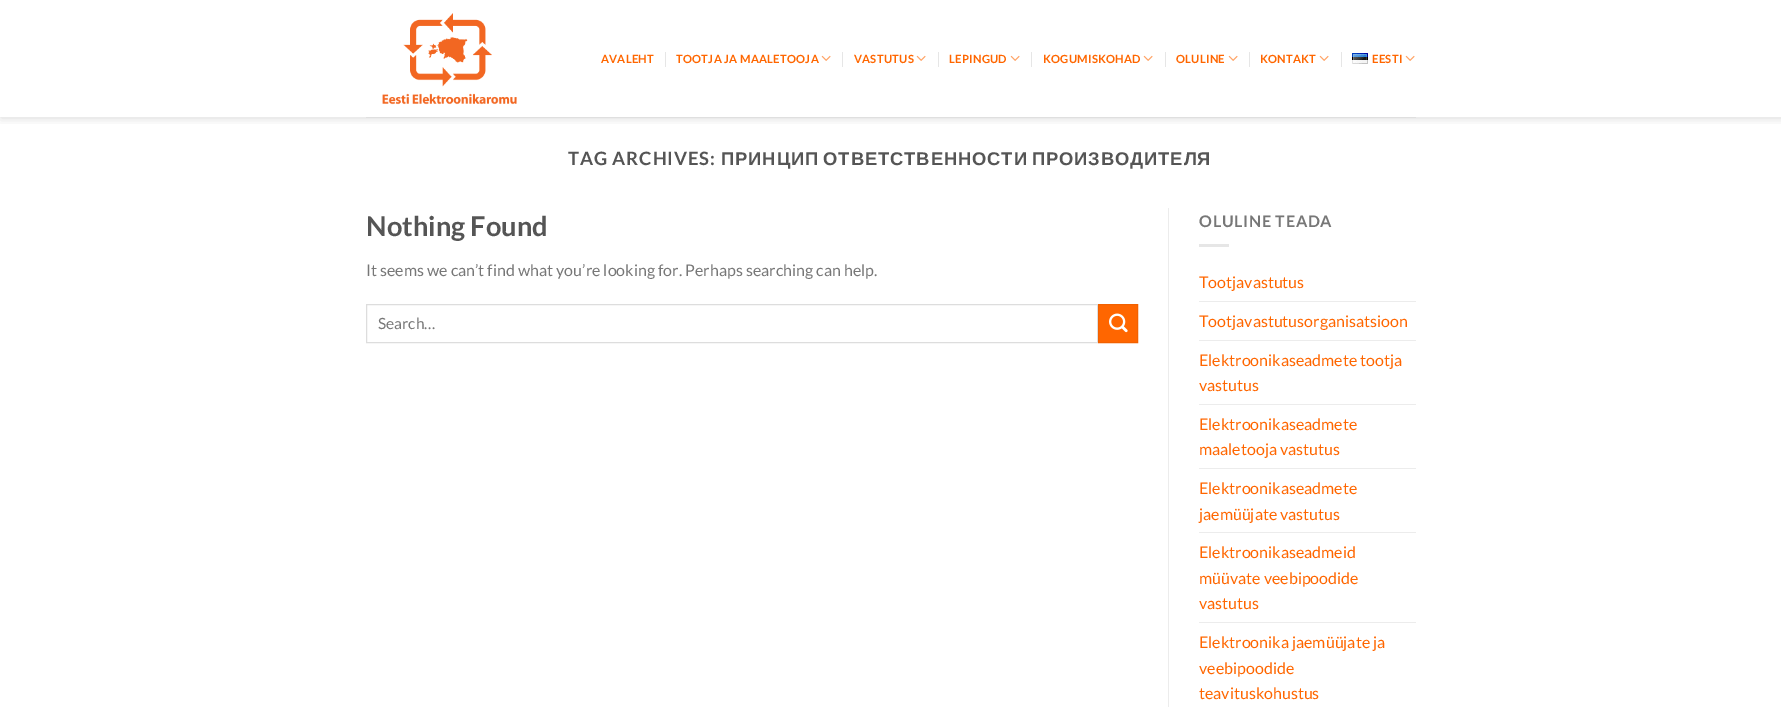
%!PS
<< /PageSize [1781 707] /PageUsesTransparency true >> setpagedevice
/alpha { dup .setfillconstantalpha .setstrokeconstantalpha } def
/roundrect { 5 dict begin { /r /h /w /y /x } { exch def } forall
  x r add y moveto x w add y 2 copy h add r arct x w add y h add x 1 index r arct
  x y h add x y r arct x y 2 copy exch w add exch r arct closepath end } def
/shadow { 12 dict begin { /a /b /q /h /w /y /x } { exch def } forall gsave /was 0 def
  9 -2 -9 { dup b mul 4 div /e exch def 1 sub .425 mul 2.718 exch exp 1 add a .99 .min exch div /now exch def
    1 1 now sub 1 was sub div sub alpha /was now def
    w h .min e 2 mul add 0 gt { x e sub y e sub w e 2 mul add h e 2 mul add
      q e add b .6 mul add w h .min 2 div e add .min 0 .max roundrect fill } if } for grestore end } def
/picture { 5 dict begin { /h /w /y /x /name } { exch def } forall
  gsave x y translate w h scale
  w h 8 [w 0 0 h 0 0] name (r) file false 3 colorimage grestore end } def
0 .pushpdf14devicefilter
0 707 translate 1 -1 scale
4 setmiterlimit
1 setgray
0 0 1781 707 rectfill
gsave
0 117 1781 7 rectclip
0 setgray
1 1 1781 117 0 5 0.15 shadow
grestore
(img1.rgb) 382 13 135 92 picture
/Lato-Bold [11.25 0 0 -11.25 0 0] selectfont
1 0.4 0 setrgbcolor
601 63 moveto 0.25 0 (AVALEHT) ashow
0.902 setgray
665 52 1 15 rectfill
1 0.4 0 setrgbcolor
676 63 moveto 0.25 0 (TOOTJA JA MAALETOOJA) ashow
(img2.rgb) 821 55 10 6 picture
0.902 setgray
842 52 1 15 rectfill
1 0.4 0 setrgbcolor
854 63 moveto 0.25 0 (VASTUTUS) ashow
(img2.rgb) 916 55 10 6 picture
0.902 setgray
938 52 1 15 rectfill
1 0.4 0 setrgbcolor
949 63 moveto 0.25 0 (LEPINGUD) ashow
(img2.rgb) 1010 55 10 6 picture
0.902 setgray
1031 52 1 15 rectfill
1 0.4 0 setrgbcolor
1043 63 moveto 0.25 0 (KOGUMISKOHAD) ashow
(img2.rgb) 1143 55 10 6 picture
0.902 setgray
1165 52 1 15 rectfill
1 0.4 0 setrgbcolor
1176 63 moveto 0.25 0 (OLULINE) ashow
(img2.rgb) 1228 55 10 6 picture
0.902 setgray
1249 52 1 15 rectfill
1 0.4 0 setrgbcolor
1260 63 moveto 0.25 0 (KONTAKT) ashow
(img2.rgb) 1319 55 10 6 picture
0.902 setgray
1341 52 1 15 rectfill
(img3.rgb) 1352 53 16 11 picture
1 0.4 0 setrgbcolor
1372 63 moveto 0.25 0 (EESTI) ashow
(img2.rgb) 1405 55 10 6 picture
0.875 setgray
366 117 1050 1 rectfill
/Lato-Bold [18.4 0 0 -18.4 0 0] selectfont
0.333 setgray
568 165 moveto 0.9 0 (TAG ARCHIVES:) ashow
/LiberationSans-Bold [18.4 0 0 -18.4 0 0] selectfont
721 165 moveto -2 0 32 0.9 0 (ПРИНЦИП ОТВЕТСТВЕННОСТИ ПРОИЗВОДИТЕЛЯ) awidthshow
/Lato-Bold [27.25 0 0 -27.25 0 0] selectfont
366 236 moveto (Nothing Found) show
/Lato-Regular [16 0 0 -16 0 0] selectfont
0.467 setgray
366 276 moveto (It seems we can’t find what you’re looking for. Perhaps searching can help.) show
0.867 setgray
366.5 304.5 731 38 rectstroke
/Lato-Regular [15.5 0 0 -15.5 0 0] selectfont
0.467 setgray
378 329 moveto (Search…) show
1 0.4 0 setrgbcolor
newpath 1098.5 304.5 moveto 1137.5 304.5 lineto 1137.5 342.5 lineto 1098.5 342.5 lineto closepath gsave fill grestore
0.949 0.38 0 setrgbcolor
stroke
(img4.rgb) 1109 313 19 20 picture
0.925 setgray
1168 208 1 499 rectfill
/Lato-Bold [16 0 0 -16 0 0] selectfont
0.467 setgray
1199 227 moveto 0.75 0 (OLULINE TEADA) ashow
0.902 setgray
1199 244 30 3 rectfill
/Lato-Regular [16 0 0 -16 0 0] selectfont
1 0.4 0 setrgbcolor
1199 288 moveto (Tootjavastutus) show
0.925 setgray
1199 301 217 1 rectfill
1 0.4 0 setrgbcolor
1199 327 moveto (Tootjavastutusorganisatsioon) show
0.925 setgray
1199 340 217 1 rectfill
1 0.4 0 setrgbcolor
1199 366 moveto (Elektroonikaseadmete tootja) show
1199 391 moveto (vastutus) show
0.925 setgray
1199 404 217 1 rectfill
1 0.4 0 setrgbcolor
1199 430 moveto (Elektroonikaseadmete) show
1199 455 moveto (maaletooja vastutus) show
0.925 setgray
1199 468 217 1 rectfill
1 0.4 0 setrgbcolor
1199 494 moveto (Elektroonikaseadmete) show
1199 520 moveto (jaemüüjate vastutus) show
0.925 setgray
1199 532 217 1 rectfill
1 0.4 0 setrgbcolor
1199 558 moveto (Elektroonikaseadmeid) show
1199 584 moveto (müüvate veebipoodide) show
1199 609 moveto (vastutus) show
0.925 setgray
1199 622 217 1 rectfill
1 0.4 0 setrgbcolor
1199 648 moveto (Elektroonika jaemüüjate ja) show
1199 674 moveto (veebipoodide) show
1199 699 moveto (teavituskohustus) show
.poppdf14devicefilter showpage
